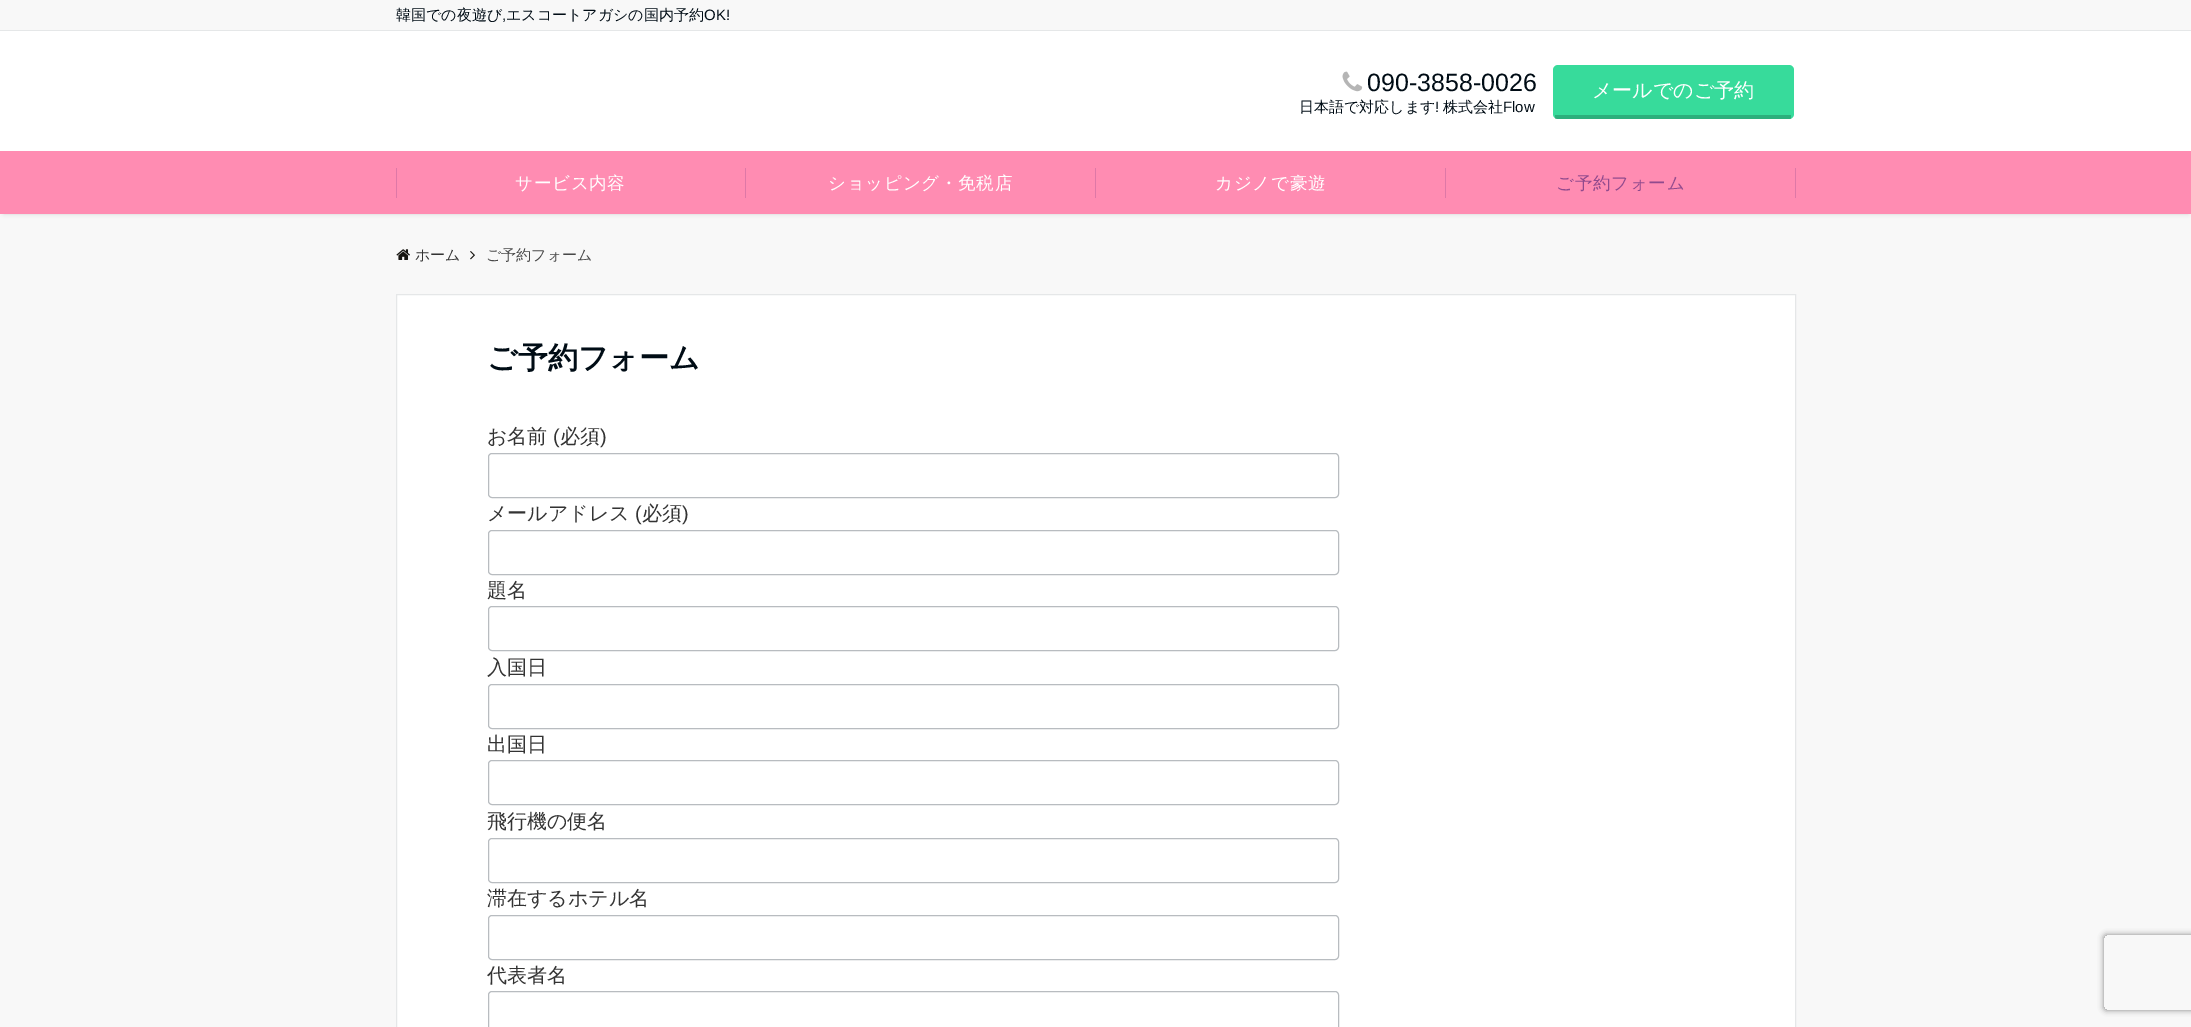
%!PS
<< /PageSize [2191 1027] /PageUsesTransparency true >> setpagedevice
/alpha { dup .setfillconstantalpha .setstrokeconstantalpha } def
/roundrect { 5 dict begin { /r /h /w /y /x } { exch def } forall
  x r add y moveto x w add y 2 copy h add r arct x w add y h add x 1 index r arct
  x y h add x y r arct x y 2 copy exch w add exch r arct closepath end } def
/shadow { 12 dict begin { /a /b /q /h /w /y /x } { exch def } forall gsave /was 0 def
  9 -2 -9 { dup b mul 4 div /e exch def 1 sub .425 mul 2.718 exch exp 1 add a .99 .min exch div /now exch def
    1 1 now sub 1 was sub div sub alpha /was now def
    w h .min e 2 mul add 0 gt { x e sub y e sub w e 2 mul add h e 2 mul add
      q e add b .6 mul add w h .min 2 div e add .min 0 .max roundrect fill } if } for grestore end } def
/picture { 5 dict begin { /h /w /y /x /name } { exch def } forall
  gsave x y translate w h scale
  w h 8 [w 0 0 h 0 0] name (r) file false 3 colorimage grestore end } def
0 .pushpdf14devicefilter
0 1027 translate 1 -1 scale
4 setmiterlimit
0.973 setgray
0 0 2191 1027 rectfill
0.898 0.906 0.91 setrgbcolor
0 30 2191 1 rectfill
/WenQuanYiZenHei-Medium [15 0 0 -15 0 0] selectfont
0 0.047 0.082 setrgbcolor
396 20 moveto (韓国での夜遊び) show
/LiberationSans-Regular [15 0 0 -15 0 0] selectfont
502 20 moveto (,) show
/WenQuanYiZenHei-Medium [15 0 0 -15 0 0] selectfont
506 20 moveto (エスコートアガシの国内予約) show
/LiberationSans-Regular [15 0 0 -15 0 0] selectfont
704 20 moveto (OK!) show
1 setgray
0 31 2191 120 rectfill
(img1.rgb) 1342 71 21 21 picture
/LiberationSans-Regular [25 0 0 -25 0 0] selectfont
0 0.047 0.082 setrgbcolor
1367 91 moveto (090-3858-0026) show
/WenQuanYiZenHei-Medium [15 0 0 -15 0 0] selectfont
1299 112 moveto (日本語で対応します) show
/LiberationSans-Regular [15 0 0 -15 0 0] selectfont
1435 112 moveto (!) show
/WenQuanYiZenHei-Medium [15 0 0 -15 0 0] selectfont
1443 112 moveto (株式会社) show
/LiberationSans-Regular [15 0 0 -15 0 0] selectfont
1503 112 moveto (Flow) show
0.216 0.859 0.608 setrgbcolor
1553 65 241 54 5 roundrect fill
0.2 alpha
0 setgray
1555 115 236 4 rectfill
/WenQuanYiZenHei-Medium [20 0 0 -20 0 0] selectfont
1 alpha
1 setgray
1592 97 moveto (メールでのご予約) show
0 setgray
4 158 2184 55 0 2.5 0.2 shadow
1 0.549 0.698 setrgbcolor
0 151 2191 63 rectfill
0.871 0.471 0.655 setrgbcolor
396 168 1 30 rectfill
/WenQuanYiZenHei-Medium [17.5 0 0 -17.5 0 0] selectfont
1 setgray
515 189 moveto 0.75 0 (サービス内容) ashow
0.871 0.471 0.655 setrgbcolor
745 168 1 30 rectfill
1 setgray
828 189 moveto 0.75 0 (ショッピング・免税店) ashow
0.871 0.471 0.655 setrgbcolor
1095 168 1 30 rectfill
1 setgray
1215 189 moveto 0.75 0 (カジノで豪遊) ashow
0.871 0.471 0.655 setrgbcolor
1445 168 1 30 rectfill
0.569 0.29 0.553 setrgbcolor
1556 189 moveto 0.75 0 (ご予約フォーム) ashow
0.871 0.471 0.655 setrgbcolor
1795 168 1 30 rectfill
(img2.rgb) 396 249 14 11 picture
/WenQuanYiZenHei-Medium [15 0 0 -15 0 0] selectfont
0.2 setgray
415 260 moveto (ホーム) show
(img3.rgb) 470 251 5 9 picture
0.282 setgray
486 260 moveto (ご予約フォーム) show
1 setgray
newpath 396.5 294.5 moveto 1795.5 294.5 lineto 1795.5 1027.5 lineto 396.5 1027.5 lineto closepath gsave fill grestore
0.898 0.906 0.91 setrgbcolor
stroke
/WenQuanYiZenHei-Bold [30 0 0 -30 0 0] selectfont
0 0.047 0.082 setrgbcolor
487 368 moveto (ご予約フォーム) show
/WenQuanYiZenHei-Medium [20 0 0 -20 0 0] selectfont
0.2 setgray
487 443 moveto (お名前) show
/LiberationSans-Regular [20 0 0 -20 0 0] selectfont
553 443 moveto (\() show
/WenQuanYiZenHei-Medium [20 0 0 -20 0 0] selectfont
560 443 moveto (必須) show
/LiberationSans-Regular [20 0 0 -20 0 0] selectfont
600 443 moveto (\)) show
0.722 0.737 0.753 setrgbcolor
488.5 453.5 850 44 3.5 roundrect stroke
/WenQuanYiZenHei-Medium [20 0 0 -20 0 0] selectfont
0.2 setgray
487 520 moveto (メールアドレス) show
/LiberationSans-Regular [20 0 0 -20 0 0] selectfont
635 520 moveto (\() show
/WenQuanYiZenHei-Medium [20 0 0 -20 0 0] selectfont
642 520 moveto (必須) show
/LiberationSans-Regular [20 0 0 -20 0 0] selectfont
682 520 moveto (\)) show
0.722 0.737 0.753 setrgbcolor
488.5 530.5 850 44 3.5 roundrect stroke
/WenQuanYiZenHei-Medium [20 0 0 -20 0 0] selectfont
0.2 setgray
487 597 moveto (題名) show
0.722 0.737 0.753 setrgbcolor
488.5 606.5 850 44 3.5 roundrect stroke
0.2 setgray
487 674 moveto (入国日) show
0.722 0.737 0.753 setrgbcolor
488.5 684.5 850 44 3.5 roundrect stroke
0.2 setgray
487 751 moveto (出国日) show
0.722 0.737 0.753 setrgbcolor
488.5 760.5 850 44 3.5 roundrect stroke
0.2 setgray
487 828 moveto (飛行機の便名) show
0.722 0.737 0.753 setrgbcolor
488.5 838.5 850 44 3.5 roundrect stroke
0.2 setgray
487 905 moveto (滞在するホテル名) show
0.722 0.737 0.753 setrgbcolor
488.5 915.5 850 44 3.5 roundrect stroke
0.2 setgray
487 982 moveto (代表者名) show
0.722 0.737 0.753 setrgbcolor
488.5 991.5 850 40 3.5 roundrect stroke
gsave
newpath 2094 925 moveto 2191 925 lineto 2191 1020 lineto 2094 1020 lineto closepath 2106.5 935 moveto 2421.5 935 lineto 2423 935 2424 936 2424 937.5 curveto 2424 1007.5 lineto 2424 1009 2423 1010 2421.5 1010 curveto 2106.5 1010 lineto 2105 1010 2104 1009 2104 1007.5 curveto 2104 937.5 lineto 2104 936 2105 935 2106.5 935 curveto closepath eoclip newpath
0.502 setgray
2104 935 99 75 2.5 3 1 shadow
grestore
.poppdf14devicefilter showpage
